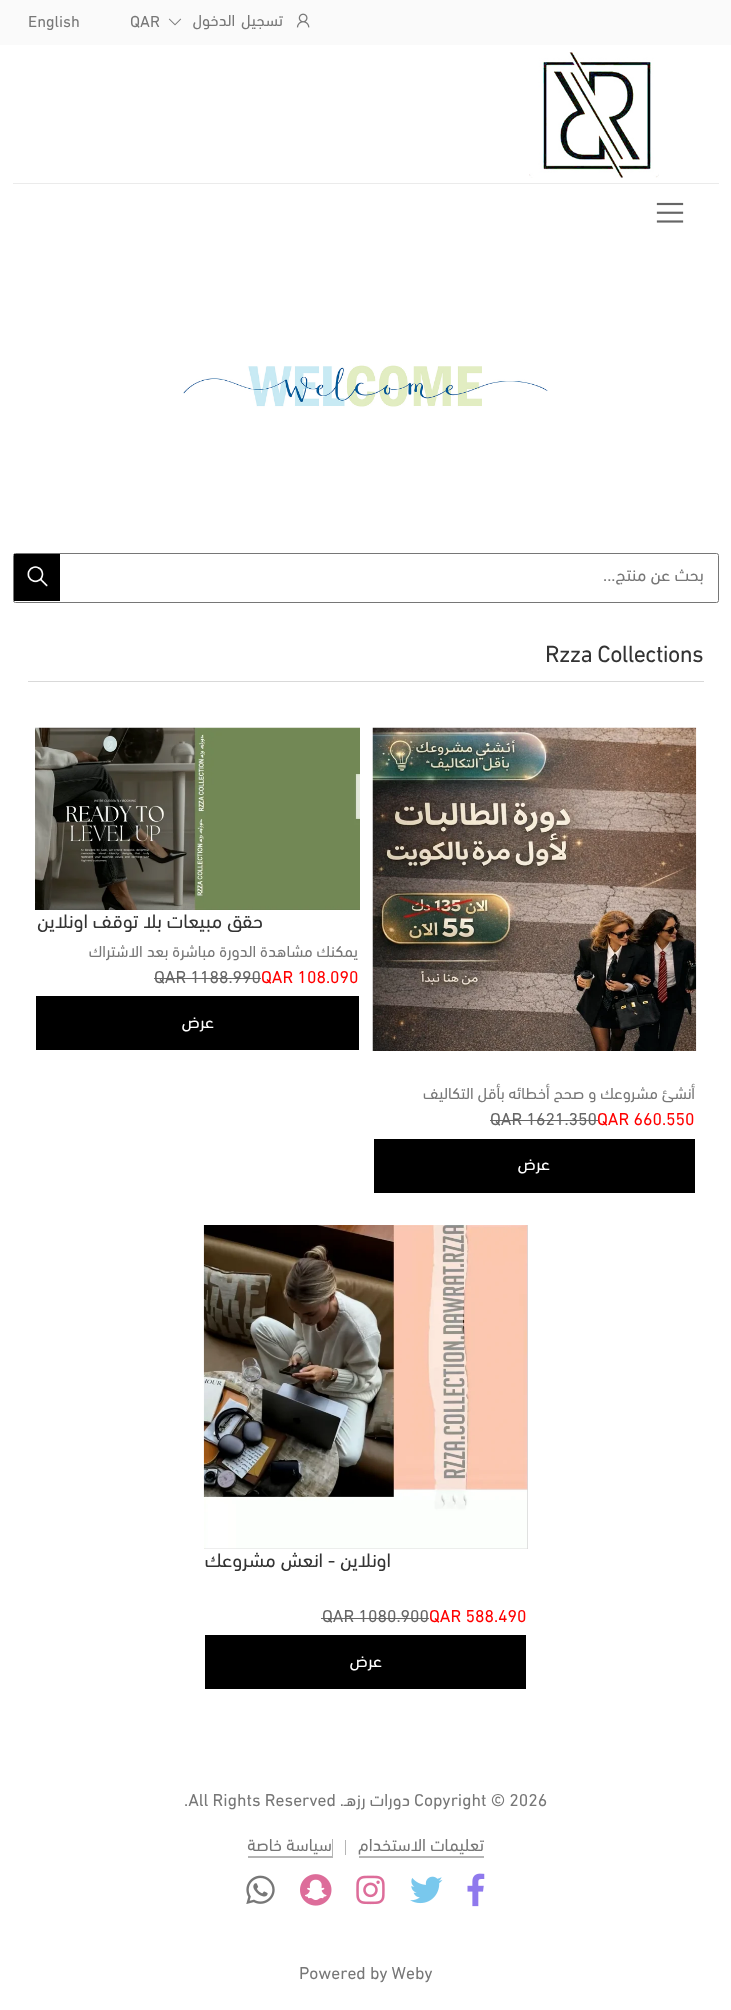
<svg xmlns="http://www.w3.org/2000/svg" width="731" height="2010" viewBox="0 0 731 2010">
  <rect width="100%" height="100%" fill="#ffffff"/>
  <rect x="0" y="0" width="731" height="45" fill="#fafafa"/>
  <image x="296" y="13" width="14" height="15" href="img1.png"/>
  <text x="283" y="26" word-spacing="2" font-family="'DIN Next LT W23'" font-size="16.25" letter-spacing="-0.2" direction="rtl" fill="#777777">تسجيل الدخول</text>
  <image x="168" y="18" width="14" height="8" href="img2.png"/>
  <text x="130" y="27" font-family="'DIN Next LT W23'" font-size="16.25" fill="#777777">QAR</text>
  <text x="28" y="27" font-family="'DIN Next LT W23'" font-size="16.25" fill="#777777">English</text>
  <image x="529" y="52" width="130" height="126" href="img3.png"/>
  <rect x="13" y="183" width="706" height="1" fill="#ebebeb"/>
  <image x="656" y="202" width="28" height="21" href="img4.png"/>
  <image x="0" y="243" width="731" height="286" href="img5.png"/>
  <rect x="13.5" y="553.5" width="705" height="49" rx="2" fill="none" stroke="#767676"/>
  <text x="704" y="581" font-family="'DIN Next LT W23'" font-size="17.5" direction="rtl" fill="#777777">بحث عن منتج...</text>
  <rect x="14" y="554" width="46" height="47" fill="#000000"/>
  <image x="27" y="566" width="21" height="21" href="img6.png"/>
  <rect x="28" y="681" width="676" height="1" fill="#d9d9d9"/>
  <text x="545" y="662" font-family="'DIN Next LT W23'" font-size="23.75" letter-spacing="-0.6" fill="#333333">Rzza Collections</text>
  <image x="35" y="727" width="325" height="183" href="img7.png"/>
  <text x="263" y="928" font-family="'DIN Next LT W23'" font-size="20" direction="rtl" fill="#333333">حقق مبيعات بلا توقف اونلاين</text>
  <text x="358" y="957" font-family="'DIN Next LT W23'" font-size="16.25" direction="rtl" fill="#777777">يمكنك مشاهدة الدورة مباشرة بعد الاشتراك</text>
  <text x="261" y="983" font-family="'DIN Next LT W23'" font-size="17.5" fill="#ff0000">QAR 108.090</text>
  <text x="154" y="983" font-family="'DIN Next LT W23'" font-size="17.5" fill="#666666">QAR 1188.990</text>
  <rect x="154" y="978" width="107" height="1" fill="#666666"/>
  <rect x="36" y="996" width="323" height="54" fill="#000000"/>
  <text x="214" y="1028" font-family="'DIN Next LT W23'" font-size="17.5" direction="rtl" fill="#ffffff">عرض</text>
  <image x="372" y="727" width="325" height="324" href="img8.png"/>
  <text x="695" y="1099" font-family="'DIN Next LT W23'" font-size="16.25" direction="rtl" fill="#777777">أنشئ مشروعك و صحح أخطائه بأقل التكاليف</text>
  <text x="597" y="1125" font-family="'DIN Next LT W23'" font-size="17.5" fill="#ff0000">QAR 660.550</text>
  <text x="490" y="1125" font-family="'DIN Next LT W23'" font-size="17.5" fill="#666666">QAR 1621.350</text>
  <rect x="490" y="1120" width="108" height="1" fill="#666666"/>
  <rect x="374" y="1139" width="321" height="54" fill="#000000"/>
  <text x="550" y="1170" font-family="'DIN Next LT W23'" font-size="17.5" direction="rtl" fill="#ffffff">عرض</text>
  <rect x="204" y="1225" width="324" height="324" fill="#d7d7d7"/>
  <image x="203" y="1225" width="325" height="324" href="img9.png"/>
  <text x="391" y="1567" font-family="'DIN Next LT W23'" font-size="20" direction="rtl" fill="#333333">اونلاين - انعش مشروعك</text>
  <text x="429" y="1622" font-family="'DIN Next LT W23'" font-size="17.5" fill="#ff0000">QAR 588.490</text>
  <text x="322" y="1622" font-family="'DIN Next LT W23'" font-size="17.5" fill="#666666">QAR 1080.900</text>
  <rect x="321" y="1618" width="108" height="1" fill="#666666"/>
  <rect x="205" y="1635" width="321" height="54" fill="#000000"/>
  <text x="382" y="1667" font-family="'DIN Next LT W23'" font-size="17.5" direction="rtl" fill="#ffffff">عرض</text>
  <text x="414" y="1806" font-family="'DIN Next LT W23'" font-size="17.5" fill="#777777">Copyright © 2026</text>
  <text x="410" y="1806" font-family="'DIN Next LT W23'" font-size="17.5" direction="rtl" fill="#777777">دورات رزهـ.</text>
  <text x="184" y="1806" font-family="'DIN Next LT W23'" font-size="17.5" fill="#777777">.All Rights Reserved</text>
  <text x="484" y="1851" font-family="'DIN Next LT W23'" font-size="17.5" direction="rtl" fill="#777777">تعليمات الاستخدام</text>
  <path d="M359 1856V1858H484V1839V1856Z" fill="#b5b5b5"/>
  <rect x="345" y="1840" width="1" height="15" fill="#b5b5b5"/>
  <path d="M248 1856V1858H333V1839H332V1856Z" fill="#b5b5b5"/>
  <text x="332" y="1851" font-family="'DIN Next LT W23'" font-size="17.5" direction="rtl" fill="#777777">سياسة خاصة</text>
  <image x="467" y="1873" width="18" height="34" href="img10.png"/>
  <image x="410" y="1876" width="33" height="28" href="img11.png"/>
  <image x="356" y="1875" width="29" height="30" href="img12.png"/>
  <image x="300" y="1874" width="32" height="32" href="img13.png"/>
  <image x="246" y="1875" width="29" height="29" href="img14.png"/>
  <text x="299" y="1979" font-family="'DIN Next LT W23'" font-size="17.5" fill="#777777">Powered by Weby</text>
</svg>
